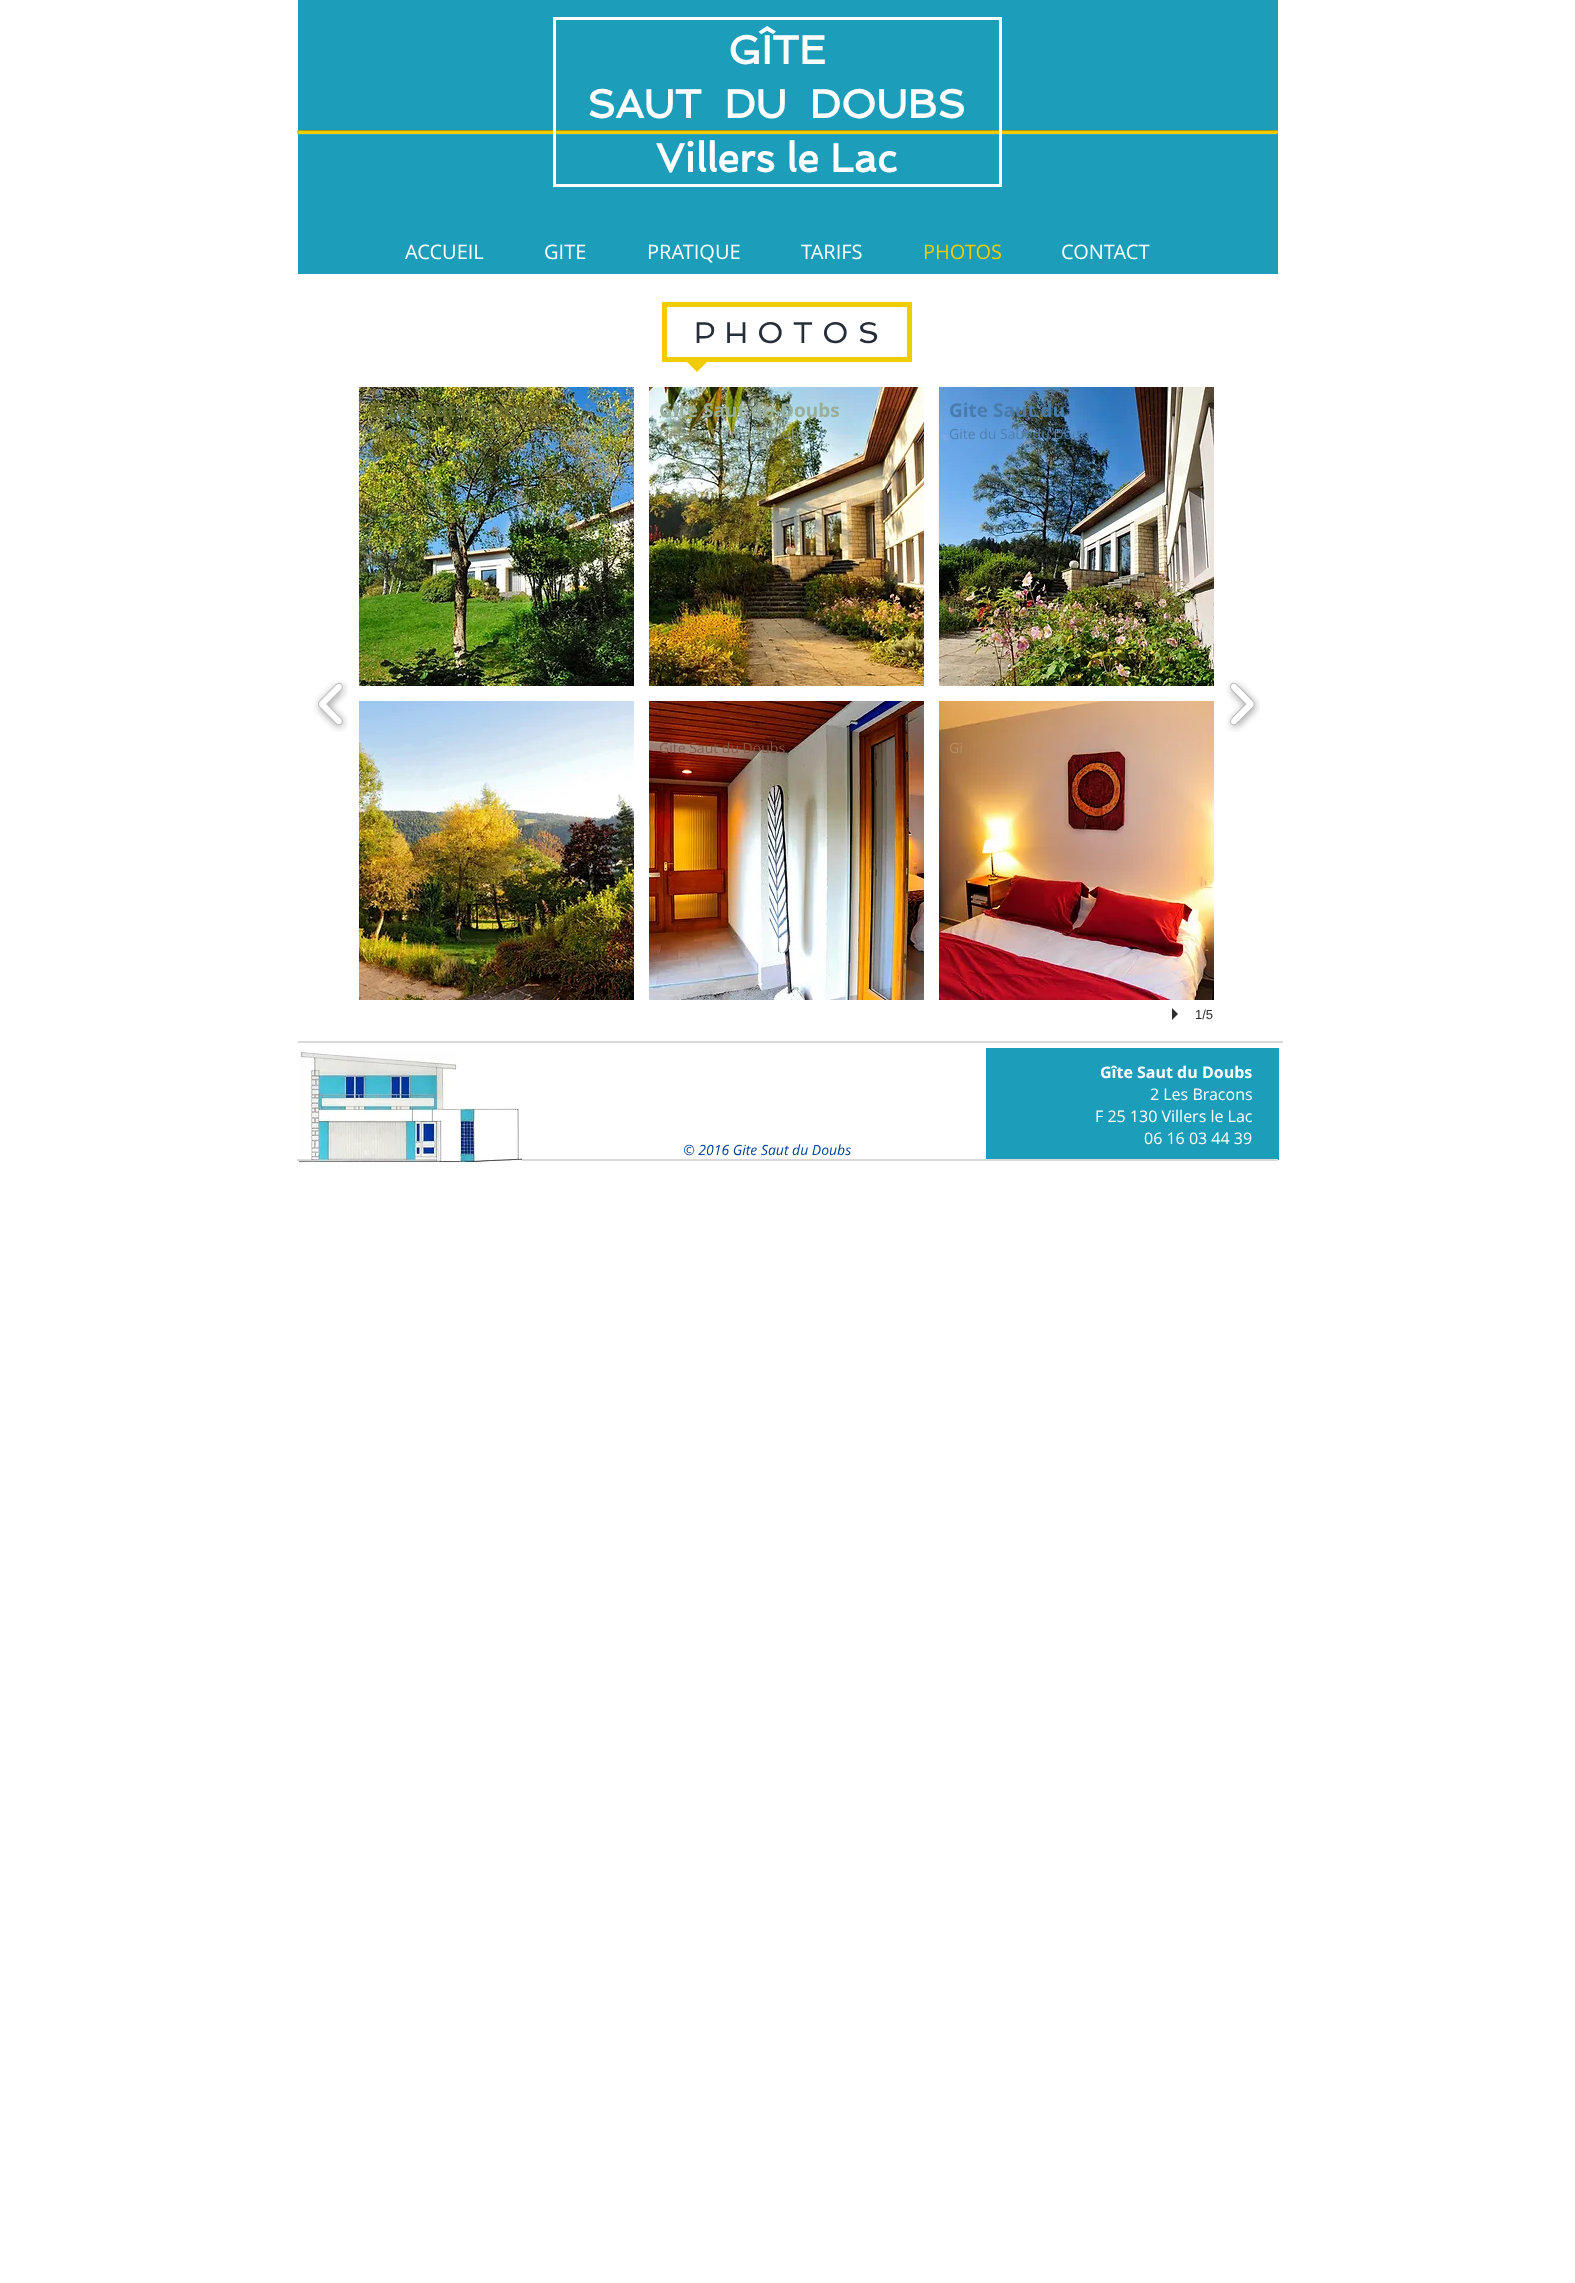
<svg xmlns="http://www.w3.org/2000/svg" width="1575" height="2283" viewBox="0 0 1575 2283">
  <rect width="100%" height="100%" fill="#ffffff"/>
  <rect x="298" y="0" width="980" height="274" fill="#1c9dba"/>
  <path d="M297 132C297 134 298 135 299 135H1276C1277 135 1278 134 1278 132C1278 133 1277 134 1276 134H299C298 134 297 133 297 132Z" fill="#33a7c1"/>
  <rect x="297" y="130" width="981" height="4" rx="2" fill="#f1cc01"/>
  <path d="M299 131H1277L1278 132L1277 131L1276 130H299C298 130 297 131 297 132Z" fill="#000000" fill-opacity="0.25"/>
  <rect x="554.5" y="18.5" width="446" height="167" fill="none" stroke="#ffffff" stroke-width="3"/>
  <text x="728" y="64" font-family="Spinnaker" font-size="40" font-weight="bold" fill="#ffffff">GÎTE</text>
  <text x="587" y="118" font-family="Spinnaker" font-size="40" font-weight="bold" fill="#ffffff" xml:space="preserve">SAUT  DU  DOUBS</text>
  <text x="656" y="172" font-family="Spinnaker" font-size="40" font-weight="bold" fill="#ffffff">Villers le Lac</text>
  <text x="405" y="259" font-family="Open Sans" font-size="20" fill="#ffffff">ACCUEIL</text>
  <text x="544" y="259" font-family="Open Sans" font-size="20" fill="#ffffff">GITE</text>
  <text x="647" y="259" font-family="Open Sans" font-size="20" fill="#ffffff">PRATIQUE</text>
  <text x="801" y="259" font-family="Open Sans" font-size="20" fill="#ffffff">TARIFS</text>
  <text x="923" y="259" font-family="Open Sans" font-size="20" fill="#f1cc01">PHOTOS</text>
  <text x="1061" y="259" font-family="Open Sans" font-size="20" fill="#ffffff">CONTACT</text>
  <rect x="664.5" y="304.5" width="245" height="55" fill="none" stroke="#f1cc01" stroke-width="5"/>
  <text x="694" y="343" font-family="Spinnaker" font-size="30" letter-spacing="9" fill="#272e38">PHOTOS</text>
  <path d="M687 362H707L697 372Z" fill="#f1cc01"/>
  <image x="359" y="387" width="275" height="299" href="img1.png"/>
  <text x="369" y="417" font-family="Open Sans" font-size="19" font-weight="bold" fill="#6c7133">Gite Saut du Doubs</text>
  <text x="369" y="439" font-family="Open Sans" font-size="14" fill="#727937">Gite du Saut du Doubs</text>
  <image x="649" y="387" width="275" height="299" href="img2.png"/>
  <text x="659" y="417" font-family="Open Sans" font-size="19" font-weight="bold" fill="#99ae99">Gite Saut du Doubs</text>
  <text x="659" y="439" font-family="Open Sans" font-size="14" fill="#86947b">Gite du Saut du Doubs</text>
  <image x="939" y="387" width="275" height="299" href="img3.png"/>
  <text x="949" y="417" font-family="Open Sans" font-size="19" font-weight="bold" fill="#477cad">Gite Saut du</text>
  <text x="949" y="439" font-family="Open Sans" font-size="14" fill="#4f80b0">Gite du Saut du Doub</text>
  <image x="359" y="701" width="275" height="299" href="img4.png"/>
  <image x="649" y="701" width="275" height="299" href="img5.png"/>
  <text x="659" y="753" font-family="Open Sans" font-size="14" fill="#875748">Gite Saut du Doubs</text>
  <image x="939" y="701" width="275" height="299" href="img6.png"/>
  <text x="949" y="753" font-family="Open Sans" font-size="14" fill="#bb8b62">Gi</text>
  <image x="314" y="680" width="34" height="52" href="img7.png"/>
  <image x="1226" y="680" width="34" height="52" href="img8.png"/>
  <path d="M1172 1020V1008L1178 1014Z" fill="#2f2e2e"/>
  <text x="1195" y="1019" font-family="Liberation Sans" font-size="13" fill="#2f2e2e">1/5</text>
  <rect x="298" y="1041" width="985" height="2" fill="#dbd8d8"/>
  <rect x="986" y="1048" width="293" height="112" fill="#1c9dba"/>
  <rect x="297" y="1159" width="981" height="2" fill="#dbd8d8"/>
  <image x="299" y="1050" width="223" height="114" href="img9.png"/>
  <text x="1100" y="1078" font-family="Open Sans" font-size="16" font-weight="bold" fill="#ffffff">Gîte Saut du Doubs</text>
  <text x="1150" y="1100" font-family="Open Sans" font-size="16" fill="#ffffff">2 Les Bracons</text>
  <text x="1095" y="1122" font-family="Open Sans" font-size="16" fill="#ffffff">F 25 130 Villers le Lac</text>
  <text x="1144" y="1144" font-family="Open Sans" font-size="16" fill="#ffffff">06 16 03 44 39</text>
  <text x="683" y="1155" font-family="Open Sans" font-size="14" font-style="italic" fill="#054196">© 2016 Gite Saut du Doubs</text>
</svg>
